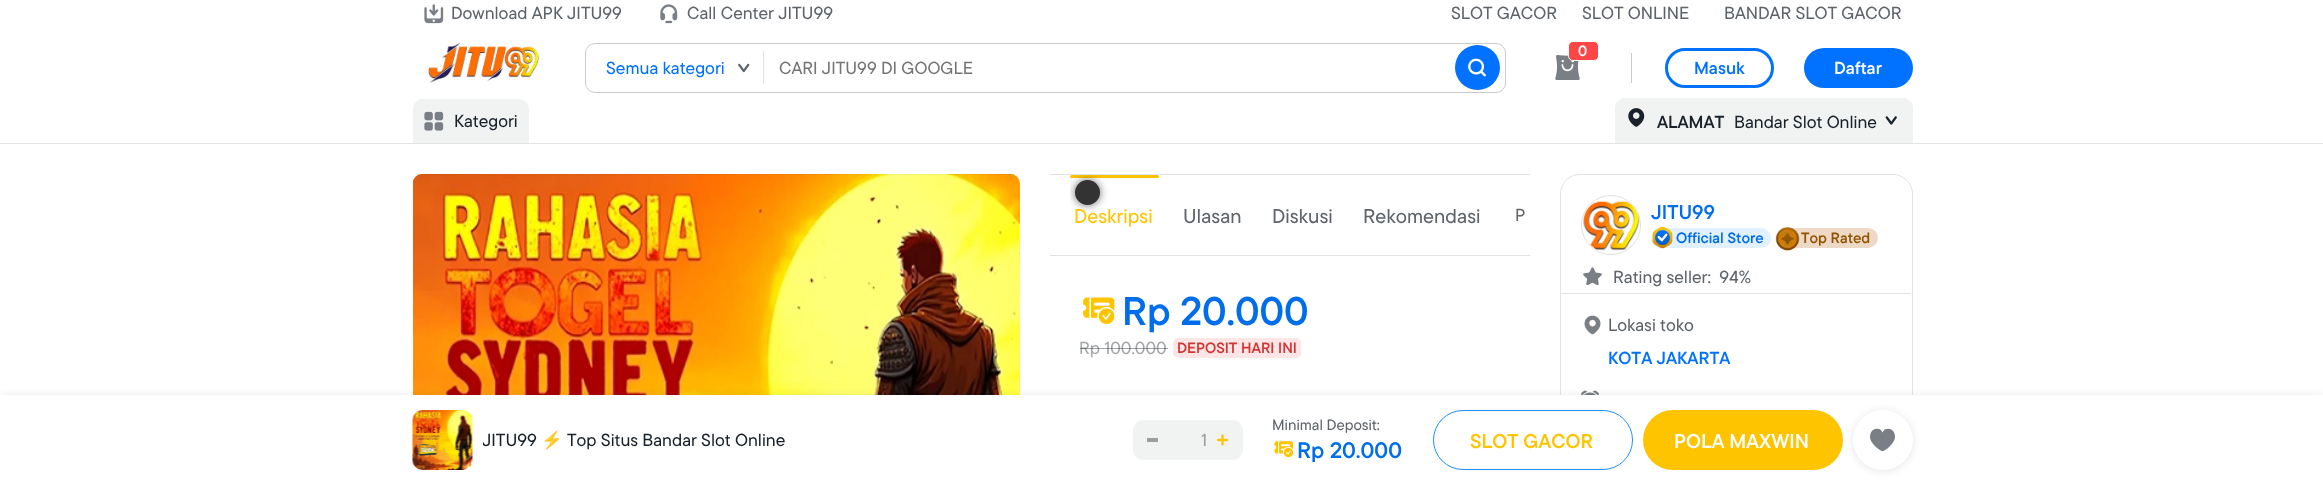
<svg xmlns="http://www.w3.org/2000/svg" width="2323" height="485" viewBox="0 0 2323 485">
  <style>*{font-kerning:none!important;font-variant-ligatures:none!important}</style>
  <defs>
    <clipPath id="clip1"><rect x="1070" y="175" width="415" height="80"/></clipPath>
    <filter id="blur1" x="-50%" y="-200%" width="200%" height="500%"><feGaussianBlur stdDeviation="4"/></filter>
    <clipPath id="clip2"><rect x="483" y="429" width="350" height="22"/></clipPath>
  </defs>
  <rect width="100%" height="100%" fill="#ffffff"/>
  <rect x="0" y="143" width="2323" height="1" fill="#e1e3e4"/>
  <image x="424" y="4" width="20" height="20" href="img1.png"/>
  <text x="451" y="19" font-family="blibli" font-size="17.5" font-weight="500" fill="#5e646a">Download APK JITU99</text>
  <image x="660" y="4" width="18" height="20" href="img2.png"/>
  <text x="687" y="19" font-family="blibli" font-size="17.5" font-weight="500" fill="#5e646a">Call Center JITU99</text>
  <text x="1451" y="19" font-family="blibli" font-size="17.5" font-weight="500" fill="#5e646a">SLOT GACOR</text>
  <text x="1582" y="19" font-family="blibli" font-size="17.5" font-weight="500" fill="#5e646a">SLOT ONLINE</text>
  <text x="1724" y="19" font-family="blibli" font-size="17.5" font-weight="500" fill="#5e646a">BANDAR SLOT GACOR</text>
  <rect x="585.5" y="43.5" width="920" height="49" rx="9.5" fill="none" stroke="#c8cbcd"/>
  <rect x="763" y="51" width="1" height="33" fill="#e1e3e4"/>
  <text x="606" y="74" font-family="blibli" font-size="17.5" font-weight="500" fill="#0072ff">Semua kategori</text>
  <image x="738" y="63" width="12" height="10" href="img3.png"/>
  <text x="779" y="74" font-family="blibli" font-size="17.5" font-weight="500" fill="#757575">CARI JITU99 DI GOOGLE</text>
  <circle cx="1477.5" cy="67.5" r="22.5" fill="#0072ff"/>
  <image x="1468" y="58" width="18" height="19" href="img4.png"/>
  <image x="1555" y="55" width="25" height="25" href="img5.png"/>
  <rect x="1568.5" y="41.5" width="30" height="19" rx="4.5" fill="#ff4646" stroke="#ffffff"/>
  <text x="1578" y="56" font-family="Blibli" font-size="15" font-weight="600" fill="#ffffff">0</text>
  <rect x="1631" y="53" width="1" height="30" fill="#c8cbcd"/>
  <rect x="1666.5" y="49.5" width="106" height="37" rx="18.5" fill="none" stroke="#0072ff" stroke-width="3"/>
  <text x="1694" y="74" font-family="Blibli" font-size="17.5" font-weight="600" fill="#0072ff">Masuk</text>
  <rect x="1804" y="48" width="109" height="40" rx="20" fill="#0072ff"/>
  <text x="1834" y="74" font-family="Blibli" font-size="17.5" font-weight="600" fill="#ffffff">Daftar</text>
  <path d="M1625 98H1903C1908.5 98 1913 102.5 1913 108V143H1615V108C1615 102.5 1619.5 98 1625 98Z" fill="#f1f2f2"/>
  <image x="1628" y="108" width="17" height="19" href="img6.png"/>
  <text x="1657" y="128" font-family="Blibli" font-size="17.5" font-weight="600" fill="#19222a">ALAMAT</text>
  <text x="1734" y="128" font-family="blibli" font-size="17.5" font-weight="500" fill="#19222a">Bandar Slot Online</text>
  <image x="1885" y="116" width="12" height="9" href="img7.png"/>
  <image x="428" y="42" width="111" height="41" href="img8.png"/>
  <path d="M423 99H519C524.5 99 529 103.5 529 109V143H413V109C413 103.5 417.5 99 423 99Z" fill="#f1f2f2"/>
  <image x="424" y="111" width="20" height="20" href="img9.png"/>
  <text x="454" y="127" font-family="blibli" font-size="17.5" font-weight="500" fill="#19222a">Kategori</text>
  <image x="413" y="174" width="607" height="221" href="img10.png"/>
  <rect x="1050" y="174" width="480" height="1" fill="#e1e3e4"/>
  <rect x="1050" y="255" width="480" height="1" fill="#e1e3e4"/>
  <rect x="1070" y="175" width="89" height="3" rx="1.5" fill="#ffc400"/>
  <g clip-path="url(#clip1)">
    <rect x="1075" y="180" width="25" height="25" rx="12.5" fill="#000000" fill-opacity="0.6" filter="url(#blur1)"/>
  </g>
  <circle cx="1087.5" cy="192.5" r="12.5" fill="#333333"/>
  <text x="1074" y="223" font-family="blibli" font-size="20" font-weight="500" fill="#ffc400">Deskripsi</text>
  <text x="1183" y="223" font-family="blibli" font-size="20" font-weight="500" fill="#5e646a">Ulasan</text>
  <text x="1272" y="223" font-family="blibli" font-size="20" font-weight="500" fill="#5e646a">Diskusi</text>
  <text x="1363" y="223" font-family="blibli" font-size="20" font-weight="500" fill="#5e646a">Rekomendasi</text>
  <text x="1515" y="221" font-family="blibli" font-size="17.5" font-weight="500" fill="#666666">P</text>
  <image x="1083" y="297" width="32" height="28" href="img11.png"/>
  <text x="1122" y="325" font-family="Blibli" font-size="40" font-weight="600" fill="#006dea">Rp 20.000</text>
  <text x="1079" y="354" font-family="blibli" font-size="17.5" font-weight="500" fill="#a3a7aa">Rp 100.000</text>
  <rect x="1080" y="348" width="88" height="1" fill="#19222a" fill-opacity="0.4"/>
  <rect x="1173" y="338" width="128" height="20" rx="5" fill="#ffe6e6"/>
  <text x="1177" y="353" font-family="Blibli" font-size="15" font-weight="600" fill="#d33534">DEPOSIT HARI INI</text>
  <rect x="1560.5" y="174.5" width="352" height="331" rx="19.5" fill="none" stroke="#e1e3e4"/>
  <circle cx="1611" cy="225" r="29.5" fill="none" stroke="#e0e0e0"/>
  <image x="1583" y="201" width="57" height="50" href="img12.png"/>
  <text x="1651" y="219" font-family="Blibli" font-size="20" font-weight="600" fill="#006dea">JITU99</text>
  <rect x="1651" y="228" width="120" height="20" rx="10" fill="#e1f1ff"/>
  <image x="1652" y="226" width="21" height="23" href="img13.png"/>
  <text x="1676" y="243" font-family="Blibli" font-size="15" font-weight="600" fill="#006dea">Official Store</text>
  <rect x="1776" y="228" width="102" height="20" rx="10" fill="#edd9c6"/>
  <image x="1775" y="227" width="25" height="24" href="img14.png"/>
  <text x="1801" y="243" font-family="Blibli" font-size="15" font-weight="600" fill="#925304">Top Rated</text>
  <image x="1583" y="267" width="19" height="19" href="img15.png"/>
  <text x="1613" y="283" font-family="blibli" font-size="17.5" font-weight="500" fill="#5e646a" xml:space="preserve">Rating seller:  94%</text>
  <rect x="1561" y="293" width="350" height="1" fill="#e1e3e4"/>
  <image x="1584" y="315" width="17" height="20" href="img16.png"/>
  <text x="1608" y="331" font-family="blibli" font-size="17.5" font-weight="500" fill="#5e646a">Lokasi toko</text>
  <text x="1608" y="364" font-family="Blibli" font-size="17.5" font-weight="600" fill="#0072ff">KOTA JAKARTA</text>
  <image x="1581" y="390" width="18" height="5" href="img17.png"/>
  <rect x="0" y="396" width="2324" height="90" fill="#000000" fill-opacity="0.1" filter="url(#blur1)"/>
  <rect x="0" y="395" width="2323" height="90" fill="#ffffff"/>
  <image x="412" y="410" width="61" height="60" href="img18.png"/>
  <g clip-path="url(#clip2)">
    <text x="482" y="446" font-family="blibli" font-size="17.5" font-weight="500" fill="#19222a">JITU99</text>
  </g>
  <text x="541" y="446" font-family="Noto Color Emoji" font-size="17.5" fill="#19222a">⚡</text>
  <text x="567" y="446" font-family="blibli" font-size="17.5" font-weight="500" fill="#19222a">Top Situs Bandar Slot Online</text>
  <rect x="1133" y="420" width="110" height="40" rx="10" fill="#f1f2f2"/>
  <rect x="1147" y="438" width="11" height="4" fill="#9b9fa2"/>
  <text x="1201" y="446" font-family="blibli" font-size="17.5" font-weight="500" fill="#9b9fa2">1</text>
  <image x="1216" y="434" width="13" height="12" href="img19.png"/>
  <text x="1272" y="430" font-family="blibli" font-size="15" font-weight="500" fill="#5e646a">Minimal Deposit:</text>
  <image x="1274" y="441" width="20" height="17" href="img20.png"/>
  <text x="1297" y="458" font-family="Blibli" font-size="22.5" font-weight="600" fill="#006dea">Rp 20.000</text>
  <rect x="1433.5" y="410.5" width="199" height="59" rx="29.5" fill="none" stroke="#1d8fff"/>
  <text x="1470" y="448" font-family="Blibli" font-size="20" font-weight="600" fill="#ffc400">SLOT GACOR</text>
  <rect x="1853" y="411" width="60" height="60" rx="30" fill="#000000" fill-opacity="0.1" filter="url(#blur1)"/>
  <rect x="1643" y="410" width="200" height="60" rx="30" fill="#ffc400"/>
  <text x="1674" y="448" font-family="Blibli" font-size="20" font-weight="600" fill="#ffffff">POLA MAXWIN</text>
  <circle cx="1883" cy="440" r="30" fill="#ffffff"/>
  <image x="1870" y="428" width="25" height="24" href="img21.png"/>
</svg>
